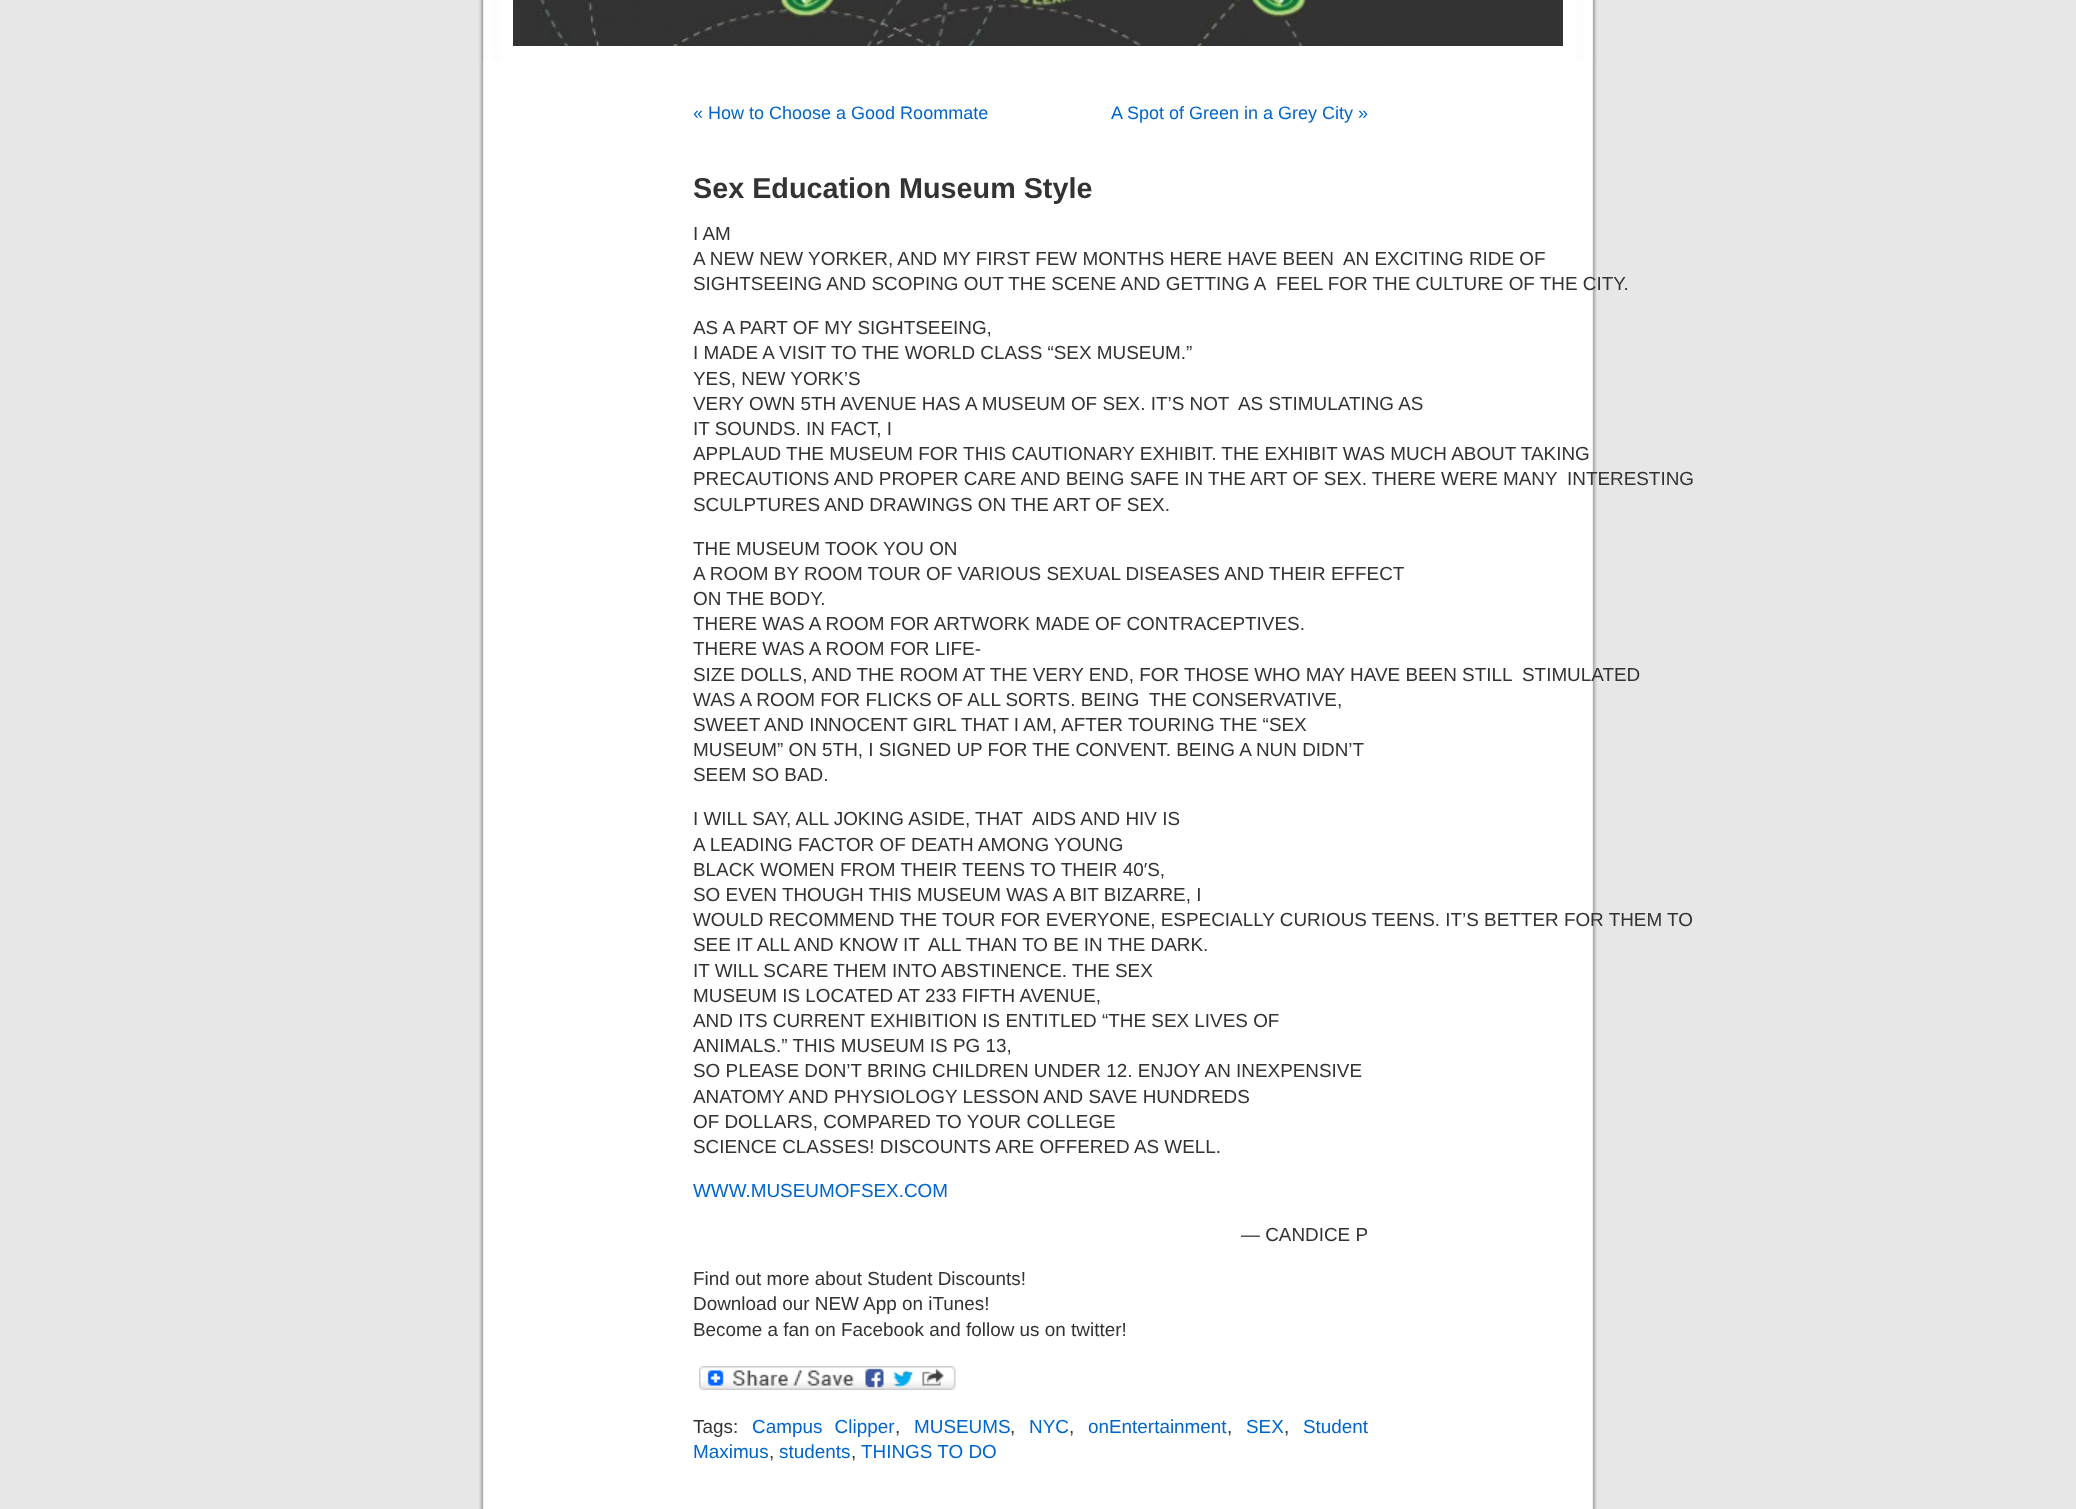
<svg xmlns="http://www.w3.org/2000/svg" width="2076" height="1509" viewBox="0 0 2076 1509">
  <rect width="100%" height="100%" fill="#e7e7e7"/>
  <image x="479" y="61" width="1118" height="1448" href="img1.png"/>
  <image x="478" y="0" width="1120" height="61" href="img2.png"/>
  <image x="513" y="0" width="1050" height="46" href="img3.png"/>
  <text x="693" y="119" font-family="Liberation Sans" font-size="18" fill="#0066cc">« How to Choose a Good Roommate</text>
  <text x="1111" y="119" font-family="Liberation Sans" font-size="18" fill="#0066cc">A Spot of Green in a Grey City »</text>
  <text x="693" y="198" font-family="Liberation Sans" font-size="28.75" font-weight="bold" fill="#333333">Sex Education Museum Style</text>
  <text x="693" y="240" font-family="Liberation Sans" font-size="18.9" fill="#333333">I AM</text>
  <text x="693" y="265" font-family="Liberation Sans" font-size="18.9" fill="#333333">A NEW NEW YORKER, AND MY FIRST FEW MONTHS HERE HAVE BEEN</text>
  <text x="1343" y="265" font-family="Liberation Sans" font-size="18.9" fill="#333333">AN EXCITING RIDE OF</text>
  <text x="693" y="290" font-family="Liberation Sans" font-size="18.9" fill="#333333">SIGHTSEEING AND SCOPING OUT THE SCENE AND GETTING A</text>
  <text x="1276" y="290" font-family="Liberation Sans" font-size="18.9" fill="#333333">FEEL FOR THE CULTURE OF THE CITY.</text>
  <text x="693" y="334" font-family="Liberation Sans" font-size="18.9" fill="#333333">AS A PART OF MY SIGHTSEEING,</text>
  <text x="693" y="359" font-family="Liberation Sans" font-size="18.9" fill="#333333">I MADE A VISIT TO THE WORLD CLASS “SEX MUSEUM.”</text>
  <text x="693" y="385" font-family="Liberation Sans" font-size="18.9" fill="#333333">YES, NEW YORK’S</text>
  <text x="693" y="410" font-family="Liberation Sans" font-size="18.9" fill="#333333">VERY OWN 5TH AVENUE HAS A MUSEUM OF SEX. IT’S NOT</text>
  <text x="1238" y="410" font-family="Liberation Sans" font-size="18.9" fill="#333333">AS STIMULATING AS</text>
  <text x="693" y="435" font-family="Liberation Sans" font-size="18.9" fill="#333333">IT SOUNDS. IN FACT, I</text>
  <text x="693" y="460" font-family="Liberation Sans" font-size="18.9" fill="#333333">APPLAUD THE MUSEUM FOR THIS CAUTIONARY EXHIBIT. THE EXHIBIT WAS MUCH ABOUT TAKING</text>
  <text x="693" y="485" font-family="Liberation Sans" font-size="18.9" fill="#333333">PRECAUTIONS AND PROPER CARE AND BEING SAFE IN THE ART OF SEX. THERE WERE MANY</text>
  <text x="1567" y="485" font-family="Liberation Sans" font-size="18.9" fill="#333333">INTERESTING</text>
  <text x="693" y="511" font-family="Liberation Sans" font-size="18.9" fill="#333333">SCULPTURES AND DRAWINGS ON THE ART OF SEX.</text>
  <text x="693" y="555" font-family="Liberation Sans" font-size="18.9" fill="#333333">THE MUSEUM TOOK YOU ON</text>
  <text x="693" y="580" font-family="Liberation Sans" font-size="18.9" fill="#333333">A ROOM BY ROOM TOUR OF VARIOUS SEXUAL DISEASES AND THEIR EFFECT</text>
  <text x="693" y="605" font-family="Liberation Sans" font-size="18.9" fill="#333333">ON THE BODY.</text>
  <text x="693" y="630" font-family="Liberation Sans" font-size="18.9" fill="#333333">THERE WAS A ROOM FOR ARTWORK MADE OF CONTRACEPTIVES.</text>
  <text x="693" y="655" font-family="Liberation Sans" font-size="18.9" fill="#333333">THERE WAS A ROOM FOR LIFE-</text>
  <text x="693" y="681" font-family="Liberation Sans" font-size="18.9" fill="#333333">SIZE DOLLS, AND THE ROOM AT THE VERY END, FOR THOSE WHO MAY HAVE BEEN STILL</text>
  <text x="1522" y="681" font-family="Liberation Sans" font-size="18.9" fill="#333333">STIMULATED</text>
  <text x="693" y="706" font-family="Liberation Sans" font-size="18.9" fill="#333333">WAS A ROOM FOR FLICKS OF ALL SORTS. BEING</text>
  <text x="1149" y="706" font-family="Liberation Sans" font-size="18.9" fill="#333333">THE CONSERVATIVE,</text>
  <text x="693" y="731" font-family="Liberation Sans" font-size="18.9" fill="#333333">SWEET AND INNOCENT GIRL THAT I AM, AFTER TOURING THE “SEX</text>
  <text x="693" y="756" font-family="Liberation Sans" font-size="18.9" fill="#333333">MUSEUM” ON 5TH, I SIGNED UP FOR THE CONVENT. BEING A NUN DIDN’T</text>
  <text x="693" y="781" font-family="Liberation Sans" font-size="18.9" fill="#333333">SEEM SO BAD.</text>
  <text x="693" y="825" font-family="Liberation Sans" font-size="18.9" fill="#333333">I WILL SAY, ALL JOKING ASIDE, THAT</text>
  <text x="1032" y="825" font-family="Liberation Sans" font-size="18.9" fill="#333333">AIDS AND HIV IS</text>
  <text x="693" y="851" font-family="Liberation Sans" font-size="18.9" fill="#333333">A LEADING FACTOR OF DEATH AMONG YOUNG</text>
  <text x="693" y="876" font-family="Liberation Sans" font-size="18.9" fill="#333333">BLACK WOMEN FROM THEIR TEENS TO THEIR 40′S,</text>
  <text x="693" y="901" font-family="Liberation Sans" font-size="18.9" fill="#333333">SO EVEN THOUGH THIS MUSEUM WAS A BIT BIZARRE, I</text>
  <text x="693" y="926" font-family="Liberation Sans" font-size="18.9" fill="#333333">WOULD RECOMMEND THE TOUR FOR EVERYONE, ESPECIALLY CURIOUS TEENS. IT’S BETTER FOR THEM TO</text>
  <text x="693" y="951" font-family="Liberation Sans" font-size="18.9" fill="#333333">SEE IT ALL AND KNOW IT</text>
  <text x="928" y="951" font-family="Liberation Sans" font-size="18.9" fill="#333333">ALL THAN TO BE IN THE DARK.</text>
  <text x="693" y="977" font-family="Liberation Sans" font-size="18.9" fill="#333333">IT WILL SCARE THEM INTO ABSTINENCE. THE SEX</text>
  <text x="693" y="1002" font-family="Liberation Sans" font-size="18.9" fill="#333333">MUSEUM IS LOCATED AT 233 FIFTH AVENUE,</text>
  <text x="693" y="1027" font-family="Liberation Sans" font-size="18.9" fill="#333333">AND ITS CURRENT EXHIBITION IS ENTITLED “THE SEX LIVES OF</text>
  <text x="693" y="1052" font-family="Liberation Sans" font-size="18.9" fill="#333333">ANIMALS.” THIS MUSEUM IS PG 13,</text>
  <text x="693" y="1077" font-family="Liberation Sans" font-size="18.9" fill="#333333">SO PLEASE DON’T BRING CHILDREN UNDER 12. ENJOY AN INEXPENSIVE</text>
  <text x="693" y="1103" font-family="Liberation Sans" font-size="18.9" fill="#333333">ANATOMY AND PHYSIOLOGY LESSON AND SAVE HUNDREDS</text>
  <text x="693" y="1128" font-family="Liberation Sans" font-size="18.9" fill="#333333">OF DOLLARS, COMPARED TO YOUR COLLEGE</text>
  <text x="693" y="1153" font-family="Liberation Sans" font-size="18.9" fill="#333333">SCIENCE CLASSES! DISCOUNTS ARE OFFERED AS WELL.</text>
  <text x="693" y="1197" font-family="Liberation Sans" font-size="18.9" fill="#0066cc">WWW.MUSEUMOFSEX.COM</text>
  <text x="1241" y="1241" font-family="Liberation Sans" font-size="18.9" fill="#333333">— CANDICE P</text>
  <text x="693" y="1285" font-family="Liberation Sans" font-size="18.9" fill="#333333">Find out more about Student Discounts!</text>
  <text x="693" y="1310" font-family="Liberation Sans" font-size="18.9" fill="#333333">Download our NEW App on iTunes!</text>
  <text x="693" y="1336" font-family="Liberation Sans" font-size="18.9" fill="#333333">Become a fan on Facebook and follow us on twitter!</text>
  <image x="699" y="1366" width="257" height="24" href="img4.png"/>
  <text x="693" y="1433" font-family="Liberation Sans" font-size="18.9" fill="#333333">Tags:</text>
  <text x="752" y="1433" word-spacing="7" font-family="Liberation Sans" font-size="18.9" fill="#0066cc">Campus Clipper</text>
  <text x="895" y="1433" font-family="Liberation Sans" font-size="18.9" fill="#333333">,</text>
  <text x="914" y="1433" font-family="Liberation Sans" font-size="18.9" fill="#0066cc">MUSEUMS</text>
  <text x="1010" y="1433" font-family="Liberation Sans" font-size="18.9" fill="#333333">,</text>
  <text x="1029" y="1433" font-family="Liberation Sans" font-size="18.9" fill="#0066cc">NYC</text>
  <text x="1069" y="1433" font-family="Liberation Sans" font-size="18.9" fill="#333333">,</text>
  <text x="1088" y="1433" font-family="Liberation Sans" font-size="18.9" fill="#0066cc">onEntertainment</text>
  <text x="1227" y="1433" font-family="Liberation Sans" font-size="18.9" fill="#333333">,</text>
  <text x="1246" y="1433" font-family="Liberation Sans" font-size="18.9" fill="#0066cc">SEX</text>
  <text x="1284" y="1433" font-family="Liberation Sans" font-size="18.9" fill="#333333">,</text>
  <text x="1303" y="1433" font-family="Liberation Sans" font-size="18.9" fill="#0066cc">Student</text>
  <text x="693" y="1458" font-family="Liberation Sans" font-size="18.9" fill="#0066cc">Maximus</text>
  <text x="769" y="1458" font-family="Liberation Sans" font-size="18.9" fill="#333333">,</text>
  <text x="779" y="1458" font-family="Liberation Sans" font-size="18.9" fill="#0066cc">students</text>
  <text x="851" y="1458" font-family="Liberation Sans" font-size="18.9" fill="#333333">,</text>
  <text x="861" y="1458" font-family="Liberation Sans" font-size="18.9" fill="#0066cc">THINGS TO DO</text>
</svg>
